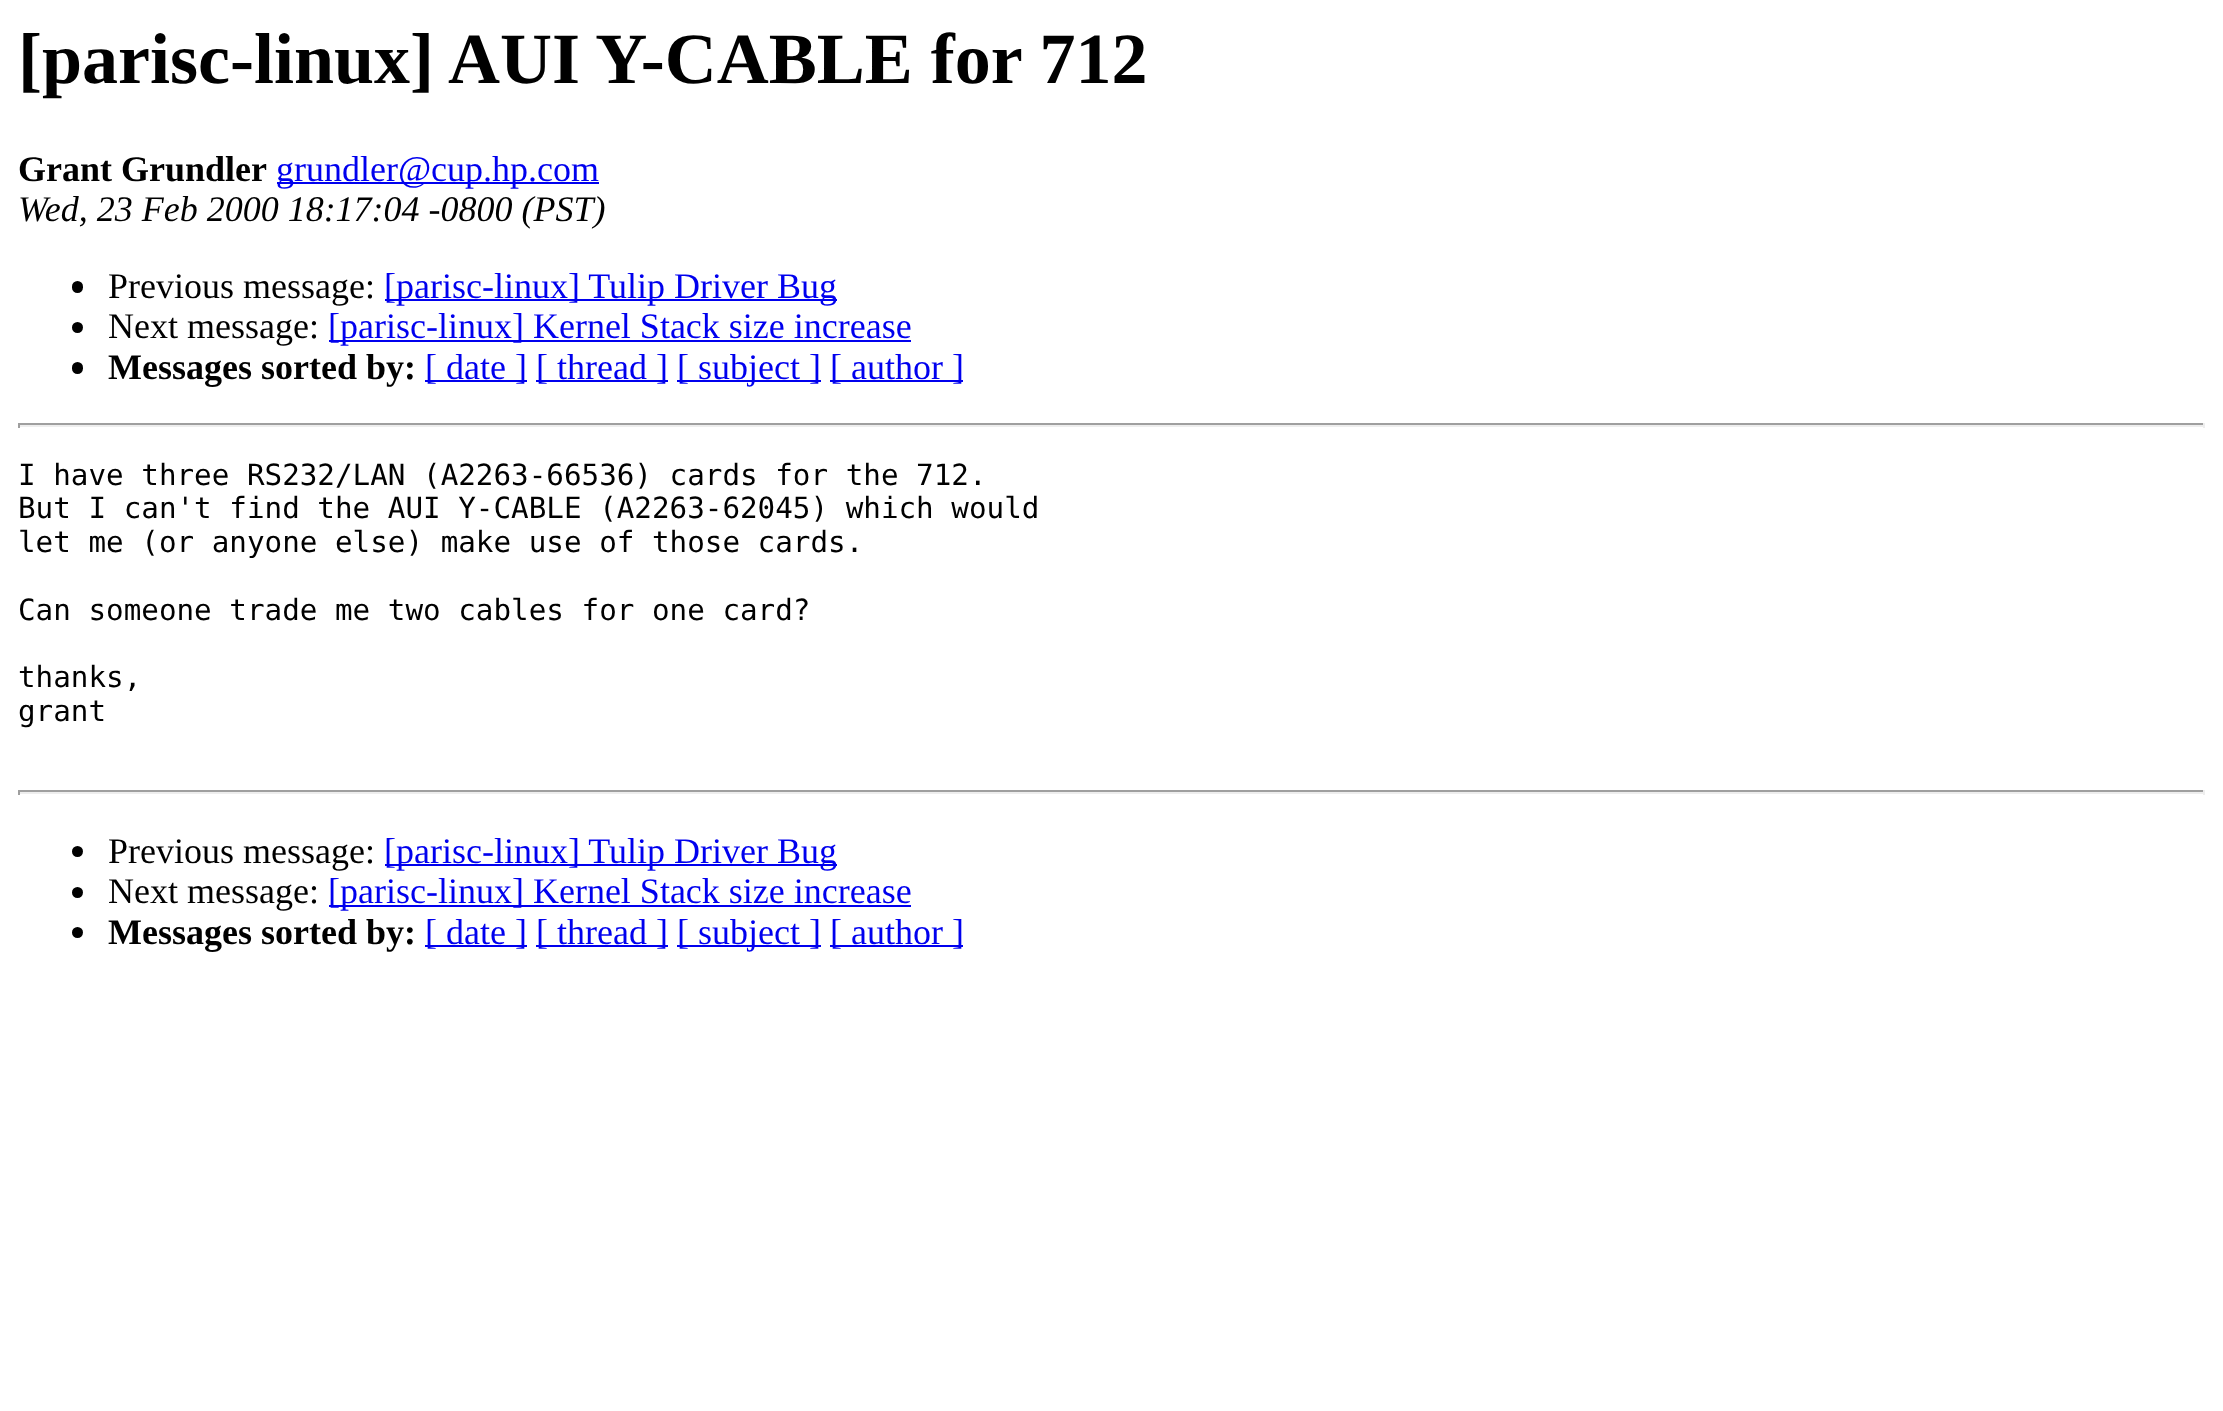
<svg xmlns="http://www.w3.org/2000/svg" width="2223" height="1411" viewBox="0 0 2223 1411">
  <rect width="100%" height="100%" fill="#ffffff"/>
  <text x="18" y="83" font-family="Liberation Serif" font-size="72" font-weight="bold" fill="#000000">[parisc-linux] AUI Y-CABLE for 712</text>
  <text x="18" y="181" font-family="Liberation Serif" font-size="36" font-weight="bold" fill="#000000">Grant Grundler</text>
  <rect x="277" y="182" width="322" height="2" fill="#0000ee"/>
  <text x="276" y="181" font-family="Liberation Serif" font-size="36" fill="#0000ee">grundler@cup.hp.com</text>
  <text x="18" y="221" font-family="Liberation Serif" font-size="36" font-style="italic" fill="#000000">Wed, 23 Feb 2000 18:17:04 -0800 (PST)</text>
  <rect x="72" y="281" width="11" height="12" rx="5.5" fill="#000000"/>
  <text x="108" y="298" font-family="Liberation Serif" font-size="36" fill="#000000">Previous message:</text>
  <rect x="385" y="299" width="452" height="2" fill="#0000ee"/>
  <text x="384" y="298" font-family="Liberation Serif" font-size="36" fill="#0000ee">[parisc-linux] Tulip Driver Bug</text>
  <circle cx="77.5" cy="327.5" r="5.5" fill="#000000"/>
  <text x="108" y="338" font-family="Liberation Serif" font-size="36" fill="#000000">Next message:</text>
  <rect x="329" y="340" width="582" height="2" fill="#0000ee"/>
  <text x="328" y="338" font-family="Liberation Serif" font-size="36" fill="#0000ee">[parisc-linux] Kernel Stack size increase</text>
  <rect x="72" y="362" width="11" height="12" rx="5.5" fill="#000000"/>
  <text x="108" y="379" font-family="Liberation Serif" font-size="36" font-weight="bold" fill="#000000">Messages sorted by:</text>
  <rect x="425" y="380" width="102" height="2" fill="#0000ee"/>
  <text x="425" y="379" font-family="Liberation Serif" font-size="36" fill="#0000ee">[ date ]</text>
  <rect x="536" y="380" width="132" height="2" fill="#0000ee"/>
  <text x="536" y="379" font-family="Liberation Serif" font-size="36" fill="#0000ee">[ thread ]</text>
  <rect x="677" y="380" width="144" height="2" fill="#0000ee"/>
  <text x="677" y="379" font-family="Liberation Serif" font-size="36" fill="#0000ee">[ subject ]</text>
  <rect x="830" y="380" width="133" height="2" fill="#0000ee"/>
  <text x="830" y="379" font-family="Liberation Serif" font-size="36" fill="#0000ee">[ author ]</text>
  <rect x="18" y="423" width="2187" height="2" fill="#9f9f9f"/>
  <rect x="2203" y="423" width="2" height="5" fill="#eeeeee"/>
  <rect x="18" y="425" width="2187" height="2" fill="#eeeeee"/>
  <rect x="18" y="423" width="2" height="5" fill="#9f9f9f"/>
  <text x="18" y="485" font-family="DejaVu Sans Mono" font-size="29.25" fill="#000000">I have three RS232/LAN (A2263-66536) cards for the 712.</text>
  <text x="18" y="518" font-family="DejaVu Sans Mono" font-size="29.25" fill="#000000">But I can't find the AUI Y-CABLE (A2263-62045) which would</text>
  <text x="18" y="552" font-family="DejaVu Sans Mono" font-size="29.25" fill="#000000">let me (or anyone else) make use of those cards.</text>
  <text x="18" y="620" font-family="DejaVu Sans Mono" font-size="29.25" fill="#000000">Can someone trade me two cables for one card?</text>
  <text x="18" y="687" font-family="DejaVu Sans Mono" font-size="29.25" fill="#000000">thanks,</text>
  <text x="18" y="721" font-family="DejaVu Sans Mono" font-size="29.25" fill="#000000">grant</text>
  <rect x="18" y="790" width="2187" height="2" fill="#9f9f9f"/>
  <rect x="2203" y="790" width="2" height="5" fill="#eeeeee"/>
  <rect x="18" y="792" width="2187" height="2" fill="#eeeeee"/>
  <rect x="18" y="790" width="2" height="5" fill="#9f9f9f"/>
  <circle cx="77.5" cy="851.5" r="5.5" fill="#000000"/>
  <text x="108" y="863" font-family="Liberation Serif" font-size="36" fill="#000000">Previous message:</text>
  <rect x="385" y="864" width="452" height="2" fill="#0000ee"/>
  <text x="384" y="863" font-family="Liberation Serif" font-size="36" fill="#0000ee">[parisc-linux] Tulip Driver Bug</text>
  <circle cx="77.5" cy="892.5" r="5.5" fill="#000000"/>
  <text x="108" y="903" font-family="Liberation Serif" font-size="36" fill="#000000">Next message:</text>
  <rect x="329" y="905" width="582" height="2" fill="#0000ee"/>
  <text x="328" y="903" font-family="Liberation Serif" font-size="36" fill="#0000ee">[parisc-linux] Kernel Stack size increase</text>
  <circle cx="77.5" cy="932.5" r="5.5" fill="#000000"/>
  <text x="108" y="944" font-family="Liberation Serif" font-size="36" font-weight="bold" fill="#000000">Messages sorted by:</text>
  <rect x="425" y="945" width="102" height="2" fill="#0000ee"/>
  <text x="425" y="944" font-family="Liberation Serif" font-size="36" fill="#0000ee">[ date ]</text>
  <rect x="536" y="945" width="132" height="2" fill="#0000ee"/>
  <text x="536" y="944" font-family="Liberation Serif" font-size="36" fill="#0000ee">[ thread ]</text>
  <rect x="677" y="945" width="144" height="2" fill="#0000ee"/>
  <text x="677" y="944" font-family="Liberation Serif" font-size="36" fill="#0000ee">[ subject ]</text>
  <rect x="830" y="945" width="133" height="2" fill="#0000ee"/>
  <text x="830" y="944" font-family="Liberation Serif" font-size="36" fill="#0000ee">[ author ]</text>
</svg>
